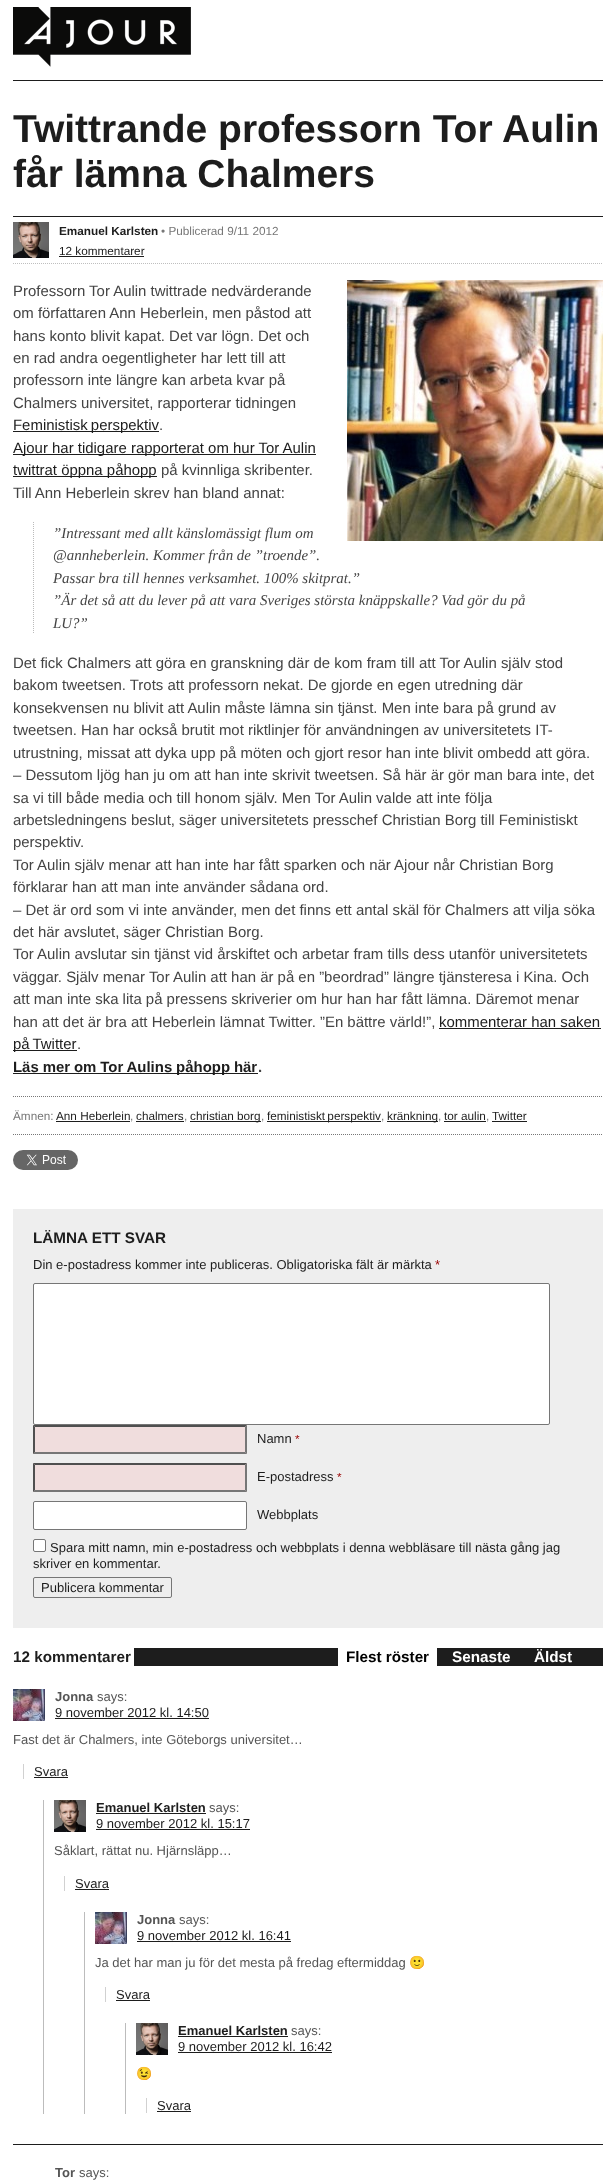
<svg xmlns="http://www.w3.org/2000/svg" width="616" height="2180" viewBox="0 0 616 2180">
  <rect width="100%" height="100%" fill="#ffffff"/>
  <rect x="13" y="80" width="590" height="1" fill="#1d1d1d"/>
  <image x="13" y="7" width="178" height="60" href="img1.png"/>
  <rect x="13" y="216" width="590" height="1" fill="#1d1d1d"/>
  <text x="13" y="142" font-family="Liberation Sans" font-size="39" font-weight="bold" fill="#1d1d1d">Twittrande professorn Tor Aulin</text>
  <text x="13" y="187" font-family="Liberation Sans" font-size="39" font-weight="bold" fill="#1d1d1d">får lämna Chalmers</text>
  <path d="M13 263.5H603" fill="none" stroke="#bfbfbf" stroke-dasharray="1 1"/>
  <image x="13" y="222" width="36" height="36" href="img2.png"/>
  <text x="59" y="235" font-family="Liberation Sans" font-size="11.75" font-weight="bold" fill="#1d1d1d">Emanuel Karlsten</text>
  <text x="161" y="235" font-family="Liberation Sans" font-size="11.75" fill="#777777">• Publicerad 9/11 2012</text>
  <text x="59" y="255" font-family="Liberation Sans" font-size="11.75" fill="#1d1d1d">12 kommentarer</text>
  <rect x="59" y="256" width="85" height="1" fill="#1d1d1d"/>
  <text x="13" y="296" font-family="Liberation Sans" font-size="14.95" fill="#444444">Professorn Tor Aulin twittrade nedvärderande</text>
  <image x="347" y="280" width="256" height="261" href="img3.png"/>
  <text x="13" y="318" font-family="Liberation Sans" font-size="14.95" fill="#444444">om författaren Ann Heberlein, men påstod att</text>
  <text x="13" y="341" font-family="Liberation Sans" font-size="14.95" fill="#444444">hans konto blivit kapat. Det var lögn. Det och</text>
  <text x="13" y="363" font-family="Liberation Sans" font-size="14.95" fill="#444444">en rad andra oegentligheter har lett till att</text>
  <text x="13" y="385" font-family="Liberation Sans" font-size="14.95" fill="#444444">professorn inte längre kan arbeta kvar på</text>
  <text x="13" y="408" font-family="Liberation Sans" font-size="14.95" fill="#444444">Chalmers universitet, rapporterar tidningen</text>
  <rect x="13" y="431" width="146" height="1" fill="#1d1d1d"/>
  <text x="13" y="430" word-spacing="-1" font-family="Liberation Sans" font-size="14.95" fill="#1d1d1d">Feministisk perspektiv</text>
  <text x="159" y="430" font-family="Liberation Sans" font-size="14.95" fill="#444444">.</text>
  <rect x="13" y="454" width="303" height="1" fill="#1d1d1d"/>
  <text x="13" y="453" font-family="Liberation Sans" font-size="14.95" fill="#1d1d1d">Ajour har tidigare rapporterat om hur Tor Aulin</text>
  <rect x="13" y="476" width="144" height="1" fill="#1d1d1d"/>
  <text x="13" y="475" font-family="Liberation Sans" font-size="14.95" fill="#1d1d1d">twittrat öppna påhopp</text>
  <text x="161" y="475" font-family="Liberation Sans" font-size="14.95" fill="#444444">på kvinnliga skribenter.</text>
  <text x="13" y="498" font-family="Liberation Sans" font-size="14.95" fill="#444444">Till Ann Heberlein skrev han bland annat:</text>
  <path d="M33.5 522V634" fill="none" stroke="#bbbbbb" stroke-dasharray="1 1"/>
  <text x="53" y="538" font-family="Liberation Serif" font-size="14.95" font-style="italic" fill="#444444">”Intressant med allt känslomässigt flum om</text>
  <text x="53" y="560" font-family="Liberation Serif" font-size="14.95" font-style="italic" fill="#444444">@annheberlein. Kommer från de ”troende”.</text>
  <text x="53" y="583" font-family="Liberation Serif" font-size="14.95" font-style="italic" fill="#444444">Passar bra till hennes verksamhet. 100% skitprat.”</text>
  <text x="53" y="605" font-family="Liberation Serif" font-size="14.95" font-style="italic" fill="#444444">”Är det så att du lever på att vara Sveriges största knäppskalle? Vad gör du på</text>
  <text x="53" y="628" font-family="Liberation Serif" font-size="14.95" font-style="italic" fill="#444444">LU?”</text>
  <text x="13" y="668" font-family="Liberation Sans" font-size="14.95" fill="#444444">Det fick Chalmers att göra en granskning där de kom fram till att Tor Aulin själv stod</text>
  <text x="13" y="690" font-family="Liberation Sans" font-size="14.95" fill="#444444">bakom tweetsen. Trots att professorn nekat. De gjorde en egen utredning där</text>
  <text x="13" y="713" font-family="Liberation Sans" font-size="14.95" fill="#444444">konsekvensen nu blivit att Aulin måste lämna sin tjänst. Men inte bara på grund av</text>
  <text x="13" y="735" font-family="Liberation Sans" font-size="14.95" fill="#444444">tweetsen. Han har också brutit mot riktlinjer för användningen av universitetets IT-</text>
  <text x="13" y="758" font-family="Liberation Sans" font-size="14.95" fill="#444444">utrustning, missat att dyka upp på möten och gjort resor han inte blivit ombedd att göra.</text>
  <text x="13" y="780" font-family="Liberation Sans" font-size="14.95" fill="#444444">– Dessutom ljög han ju om att han inte skrivit tweetsen. Så här är gör man bara inte, det</text>
  <text x="13" y="803" font-family="Liberation Sans" font-size="14.95" fill="#444444">sa vi till både media och till honom själv. Men Tor Aulin valde att inte följa</text>
  <text x="13" y="825" font-family="Liberation Sans" font-size="14.95" fill="#444444">arbetsledningens beslut, säger universitetets presschef Christian Borg till Feministiskt</text>
  <text x="13" y="847" font-family="Liberation Sans" font-size="14.95" fill="#444444">perspektiv.</text>
  <text x="13" y="870" font-family="Liberation Sans" font-size="14.95" fill="#444444">Tor Aulin själv menar att han inte har fått sparken och när Ajour når Christian Borg</text>
  <text x="13" y="892" font-family="Liberation Sans" font-size="14.95" fill="#444444">förklarar han att man inte använder sådana ord.</text>
  <text x="13" y="915" font-family="Liberation Sans" font-size="14.95" fill="#444444">– Det är ord som vi inte använder, men det finns ett antal skäl för Chalmers att vilja söka</text>
  <text x="13" y="937" font-family="Liberation Sans" font-size="14.95" fill="#444444">det här avslutet, säger Christian Borg.</text>
  <text x="13" y="959" font-family="Liberation Sans" font-size="14.95" fill="#444444">Tor Aulin avslutar sin tjänst vid årskiftet och arbetar fram tills dess utanför universitetets</text>
  <text x="13" y="982" font-family="Liberation Sans" font-size="14.95" fill="#444444">väggar. Själv menar Tor Aulin att han är på en ”beordrad” längre tjänsteresa i Kina. Och</text>
  <text x="13" y="1004" font-family="Liberation Sans" font-size="14.95" fill="#444444">att man inte ska lita på pressens skriverier om hur han har fått lämna. Däremot menar</text>
  <text x="13" y="1027" font-family="Liberation Sans" font-size="14.95" fill="#444444">han att det är bra att Heberlein lämnat Twitter. ”En bättre värld!”,</text>
  <text x="439" y="1027" font-family="Liberation Sans" font-size="14.95" fill="#1d1d1d">kommenterar han saken</text>
  <rect x="439" y="1028" width="162" height="1" fill="#1d1d1d"/>
  <rect x="13" y="1050" width="64" height="1" fill="#1d1d1d"/>
  <text x="13" y="1049" word-spacing="-1" font-family="Liberation Sans" font-size="14.95" fill="#1d1d1d">på Twitter</text>
  <text x="77" y="1049" font-family="Liberation Sans" font-size="14.95" fill="#444444">.</text>
  <rect x="13" y="1073" width="245" height="1" fill="#1d1d1d"/>
  <text x="13" y="1072" word-spacing="-0.25" font-family="Liberation Sans" font-size="14.95" font-weight="bold" fill="#1d1d1d">Läs mer om Tor Aulins påhopp här</text>
  <text x="258" y="1072" font-family="Liberation Sans" font-size="14.95" font-weight="bold" fill="#444444">.</text>
  <path d="M13 1096.5H603" fill="none" stroke="#777777" stroke-dasharray="1 1"/>
  <path d="M13 1134.5H603" fill="none" stroke="#777777" stroke-dasharray="1 1"/>
  <text x="13" y="1120" font-family="Liberation Sans" font-size="11.75" fill="#777777">Ämnen:</text>
  <text x="56" y="1120" font-family="Liberation Sans" font-size="11.75" fill="#1d1d1d">Ann Heberlein</text>
  <rect x="56" y="1121" width="74" height="1" fill="#1d1d1d"/>
  <text x="130" y="1120" font-family="Liberation Sans" font-size="11.75" fill="#777777">,</text>
  <text x="136" y="1120" font-family="Liberation Sans" font-size="11.75" fill="#1d1d1d">chalmers</text>
  <rect x="136" y="1121" width="48" height="1" fill="#1d1d1d"/>
  <text x="184" y="1120" font-family="Liberation Sans" font-size="11.75" fill="#777777">,</text>
  <rect x="190" y="1121" width="71" height="1" fill="#1d1d1d"/>
  <text x="190" y="1120" font-family="Liberation Sans" font-size="11.75" fill="#1d1d1d">christian borg</text>
  <text x="261" y="1120" font-family="Liberation Sans" font-size="11.75" fill="#777777">,</text>
  <rect x="267" y="1121" width="114" height="1" fill="#1d1d1d"/>
  <text x="267" y="1120" word-spacing="-1" font-family="Liberation Sans" font-size="11.75" fill="#1d1d1d">feministiskt perspektiv</text>
  <text x="381" y="1120" font-family="Liberation Sans" font-size="11.75" fill="#777777">,</text>
  <rect x="387" y="1121" width="51" height="1" fill="#1d1d1d"/>
  <text x="387" y="1120" font-family="Liberation Sans" font-size="11.75" fill="#1d1d1d">kränkning</text>
  <text x="438" y="1120" font-family="Liberation Sans" font-size="11.75" fill="#777777">,</text>
  <text x="444" y="1120" font-family="Liberation Sans" font-size="11.75" fill="#1d1d1d">tor aulin</text>
  <rect x="444" y="1121" width="42" height="1" fill="#1d1d1d"/>
  <text x="486" y="1120" font-family="Liberation Sans" font-size="11.75" fill="#777777">,</text>
  <text x="492" y="1120" font-family="Liberation Sans" font-size="11.75" fill="#1d1d1d">Twitter</text>
  <rect x="492" y="1121" width="35" height="1" fill="#1d1d1d"/>
  <image x="13" y="1150" width="65" height="20" href="img4.png"/>
  <rect x="13" y="1209" width="590" height="419" fill="#eeeeee"/>
  <text x="33" y="1243" font-family="Liberation Sans" font-size="15.25" font-weight="bold" fill="#1d1d1d">LÄMNA ETT SVAR</text>
  <text x="33" y="1269" font-family="Liberation Sans" font-size="13" fill="#1d1d1d">Din e-postadress kommer inte publiceras. Obligatoriska fält är märkta</text>
  <text x="435" y="1269" font-family="Liberation Sans" font-size="13" fill="#990000">*</text>
  <rect x="33.5" y="1283.5" width="516" height="141" rx="1.5" fill="#ffffff" stroke="#767676"/>
  <rect x="33" y="1425" width="214" height="29" fill="#f0dddd"/>
  <path d="M33 1425H247L245 1427H35Z" fill="#4f4f4f"/>
  <path d="M247 1425V1454L245 1452V1427Z" fill="#767676"/>
  <path d="M247 1454H33L35 1452H245Z" fill="#767676"/>
  <path d="M33 1454V1425L35 1427V1452Z" fill="#4f4f4f"/>
  <text x="257" y="1443" font-family="Liberation Sans" font-size="13" fill="#1d1d1d">Namn</text>
  <text x="295" y="1443" font-family="Liberation Sans" font-size="11.75" fill="#990000">*</text>
  <rect x="33" y="1463" width="214" height="29" fill="#f0dddd"/>
  <path d="M33 1463H247L245 1465H35Z" fill="#4f4f4f"/>
  <path d="M247 1463V1492L245 1490V1465Z" fill="#767676"/>
  <path d="M247 1492H33L35 1490H245Z" fill="#767676"/>
  <path d="M33 1492V1463L35 1465V1490Z" fill="#4f4f4f"/>
  <text x="257" y="1481" font-family="Liberation Sans" font-size="13" fill="#1d1d1d">E-postadress</text>
  <text x="337" y="1481" font-family="Liberation Sans" font-size="11.75" fill="#990000">*</text>
  <rect x="33.5" y="1501.5" width="213" height="28" rx="1.5" fill="#ffffff" stroke="#767676"/>
  <text x="257" y="1519" font-family="Liberation Sans" font-size="13" fill="#1d1d1d">Webbplats</text>
  <rect x="33.5" y="1539.5" width="12" height="12" rx="1.5" fill="#ffffff" stroke="#767676"/>
  <text x="50" y="1552" font-family="Liberation Sans" font-size="13" fill="#1d1d1d">Spara mitt namn, min e-postadress och webbplats i denna webbläsare till nästa gång jag</text>
  <text x="33" y="1568" font-family="Liberation Sans" font-size="13" fill="#1d1d1d">skriver en kommentar.</text>
  <rect x="33.5" y="1577.5" width="138" height="20" rx="1.5" fill="none" stroke="#767676"/>
  <text x="41" y="1592" font-family="Liberation Sans" font-size="13" fill="#1d1d1d">Publicera kommentar</text>
  <rect x="134" y="1648" width="469" height="18" fill="#1d1d1d"/>
  <text x="13" y="1662" font-family="Liberation Sans" font-size="15.25" font-weight="bold" fill="#1d1d1d">12 kommentarer</text>
  <rect x="338" y="1648" width="99" height="18" fill="#ffffff"/>
  <text x="346" y="1662" font-family="Liberation Sans" font-size="15.25" font-weight="bold" fill="#000000">Flest röster</text>
  <text x="452" y="1662" font-family="Liberation Sans" font-size="15.25" font-weight="bold" fill="#ffffff">Senaste</text>
  <text x="534" y="1662" font-family="Liberation Sans" font-size="15.25" font-weight="bold" fill="#ffffff">Äldst</text>
  <rect x="13" y="2144" width="590" height="1" fill="#1d1d1d"/>
  <image x="13" y="1689" width="32" height="32" href="img5.png"/>
  <text x="55" y="1701" font-family="Liberation Sans" font-size="13" font-weight="bold" fill="#555555">Jonna</text>
  <text x="97" y="1701" font-family="Liberation Sans" font-size="13" fill="#555555">says:</text>
  <text x="55" y="1717" font-family="Liberation Sans" font-size="13" fill="#1d1d1d">9 november 2012 kl. 14:50</text>
  <rect x="55" y="1718" width="154" height="1" fill="#1d1d1d"/>
  <text x="13" y="1744" font-family="Liberation Sans" font-size="13" fill="#555555">Fast det är Chalmers, inte Göteborgs universitet…</text>
  <rect x="23" y="1764" width="1" height="15" fill="#d1d1d1"/>
  <text x="34" y="1776" font-family="Liberation Sans" font-size="13" fill="#1d1d1d">Svara</text>
  <rect x="34" y="1777" width="34" height="1" fill="#1d1d1d"/>
  <rect x="43" y="1800" width="1" height="314" fill="#bcbcbc"/>
  <image x="54" y="1800" width="32" height="32" href="img6.png"/>
  <text x="96" y="1812" font-family="Liberation Sans" font-size="13" font-weight="bold" fill="#1d1d1d">Emanuel Karlsten</text>
  <rect x="96" y="1813" width="110" height="1" fill="#1d1d1d"/>
  <text x="209" y="1812" font-family="Liberation Sans" font-size="13" fill="#555555">says:</text>
  <text x="96" y="1828" font-family="Liberation Sans" font-size="13" fill="#1d1d1d">9 november 2012 kl. 15:17</text>
  <rect x="96" y="1829" width="154" height="1" fill="#1d1d1d"/>
  <text x="54" y="1855" font-family="Liberation Sans" font-size="13" fill="#555555">Såklart, rättat nu. Hjärnsläpp…</text>
  <rect x="64" y="1876" width="1" height="15" fill="#d1d1d1"/>
  <text x="75" y="1888" font-family="Liberation Sans" font-size="13" fill="#1d1d1d">Svara</text>
  <rect x="75" y="1889" width="34" height="1" fill="#1d1d1d"/>
  <rect x="84" y="1912" width="1" height="202" fill="#bcbcbc"/>
  <image x="95" y="1912" width="32" height="32" href="img5.png"/>
  <text x="137" y="1924" font-family="Liberation Sans" font-size="13" font-weight="bold" fill="#555555">Jonna</text>
  <text x="179" y="1924" font-family="Liberation Sans" font-size="13" fill="#555555">says:</text>
  <text x="137" y="1940" font-family="Liberation Sans" font-size="13" fill="#1d1d1d">9 november 2012 kl. 16:41</text>
  <rect x="137" y="1941" width="154" height="1" fill="#1d1d1d"/>
  <text x="95" y="1967" font-family="Liberation Sans" font-size="13" fill="#555555">Ja det har man ju för det mesta på fredag eftermiddag</text>
  <text x="409" y="1967" font-family="Noto Color Emoji" font-size="13" fill="#555555">🙂</text>
  <rect x="105" y="1987" width="1" height="15" fill="#d1d1d1"/>
  <text x="116" y="1999" font-family="Liberation Sans" font-size="13" fill="#1d1d1d">Svara</text>
  <rect x="116" y="2000" width="34" height="1" fill="#1d1d1d"/>
  <rect x="125" y="2023" width="1" height="91" fill="#bcbcbc"/>
  <image x="136" y="2023" width="32" height="32" href="img6.png"/>
  <text x="178" y="2035" font-family="Liberation Sans" font-size="13" font-weight="bold" fill="#1d1d1d">Emanuel Karlsten</text>
  <rect x="178" y="2036" width="110" height="1" fill="#1d1d1d"/>
  <text x="291" y="2035" font-family="Liberation Sans" font-size="13" fill="#555555">says:</text>
  <text x="178" y="2051" font-family="Liberation Sans" font-size="13" fill="#1d1d1d">9 november 2012 kl. 16:42</text>
  <rect x="178" y="2052" width="154" height="1" fill="#1d1d1d"/>
  <text x="136" y="2078" font-family="Noto Color Emoji" font-size="13" fill="#555555">😉</text>
  <rect x="146" y="2098" width="1" height="15" fill="#d1d1d1"/>
  <text x="157" y="2110" font-family="Liberation Sans" font-size="13" fill="#1d1d1d">Svara</text>
  <rect x="157" y="2111" width="34" height="1" fill="#1d1d1d"/>
  <text x="55" y="2177" font-family="Liberation Sans" font-size="13" font-weight="bold" fill="#555555">Tor</text>
  <text x="79" y="2177" font-family="Liberation Sans" font-size="13" fill="#555555">says:</text>
</svg>
